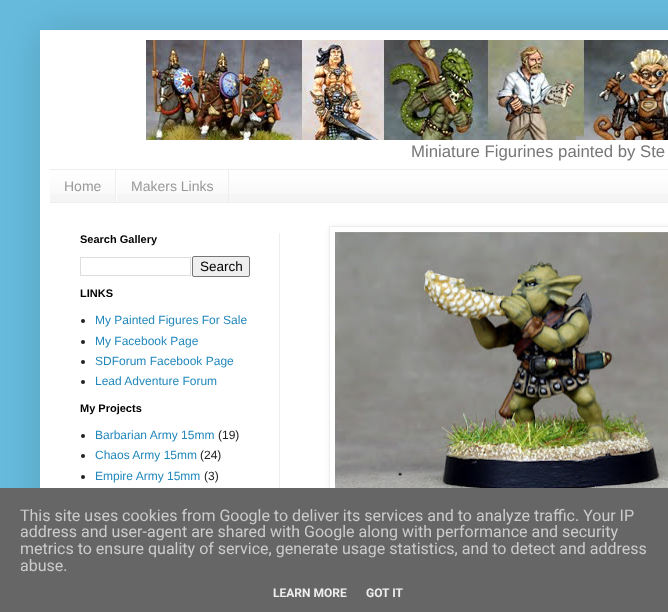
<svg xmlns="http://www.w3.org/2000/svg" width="668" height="612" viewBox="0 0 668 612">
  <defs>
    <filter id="blur1" x="-50%" y="-200%" width="200%" height="500%"><feGaussianBlur stdDeviation="20"/></filter>
    <clipPath id="clip1"><path d="M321 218H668V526H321ZM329 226H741V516H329Z" clip-rule="evenodd"/></clipPath>
    <filter id="blur2" x="-50%" y="-200%" width="200%" height="500%"><feGaussianBlur stdDeviation="2.5"/></filter>
  </defs>
  <rect width="100%" height="100%" fill="#66bbdd"/>
  <rect x="40" y="30" width="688" height="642" fill="#000000" fill-opacity="0.15" filter="url(#blur1)"/>
  <rect x="40" y="30" width="628" height="458" fill="#ffffff"/>
  <image x="146" y="40" width="522" height="100" href="img1.png"/>
  <text x="411" y="157" font-family="Liberation Sans" font-size="16.75" fill="#777777">Miniature Figurines painted by Ste</text>
  <rect x="50" y="171" width="618" height="31" fill="#f5f5f5"/>
  <image x="50" y="170" width="618" height="24" href="img2.png"/>
  <rect x="50" y="169" width="618" height="1" fill="#eeeeee"/>
  <rect x="50" y="202" width="618" height="1" fill="#eeeeee"/>
  <rect x="115" y="170" width="1" height="32" fill="#eeeeee"/>
  <text x="64" y="191" font-family="Liberation Sans" font-size="14" fill="#999999">Home</text>
  <rect x="228" y="170" width="1" height="32" fill="#eeeeee"/>
  <rect x="116" y="181" width="1" height="21" fill="#ffffff"/>
  <text x="131" y="191" font-family="Liberation Sans" font-size="14" fill="#999999">Makers Links</text>
  <text x="80" y="243" font-family="Liberation Sans" font-size="11" font-weight="bold" fill="#000000">Search Gallery</text>
  <rect x="80.5" y="257.5" width="110" height="18" fill="none" stroke="#dddddd"/>
  <rect x="192.5" y="256.5" width="57" height="20" rx="1.5" fill="#efefef" stroke="#767676"/>
  <text x="200" y="271" font-family="Liberation Sans" font-size="13.5" fill="#000000">Search</text>
  <text x="80" y="297" font-family="Liberation Sans" font-size="11" font-weight="bold" fill="#000000">LINKS</text>
  <circle cx="83" cy="321" r="2" fill="#222222"/>
  <text x="95" y="324" font-family="Liberation Sans" font-size="12" fill="#2288bb">My Painted Figures For Sale</text>
  <circle cx="83" cy="342" r="2" fill="#222222"/>
  <text x="95" y="345" font-family="Liberation Sans" font-size="12" fill="#2288bb">My Facebook Page</text>
  <circle cx="83" cy="362" r="2" fill="#222222"/>
  <text x="95" y="365" font-family="Liberation Sans" font-size="12" fill="#2288bb">SDForum Facebook Page</text>
  <circle cx="83" cy="382" r="2" fill="#222222"/>
  <text x="95" y="385" font-family="Liberation Sans" font-size="12" fill="#2288bb">Lead Adventure Forum</text>
  <text x="80" y="412" font-family="Liberation Sans" font-size="11" font-weight="bold" fill="#000000">My Projects</text>
  <circle cx="83" cy="436" r="2" fill="#222222"/>
  <text x="95" y="439" font-family="Liberation Sans" font-size="12" fill="#2288bb">Barbarian Army 15mm</text>
  <text x="218" y="439" font-family="Liberation Sans" font-size="12" fill="#222222">(19)</text>
  <circle cx="83" cy="456" r="2" fill="#222222"/>
  <text x="95" y="459" font-family="Liberation Sans" font-size="12" fill="#2288bb">Chaos Army 15mm</text>
  <text x="200" y="459" font-family="Liberation Sans" font-size="12" fill="#222222">(24)</text>
  <circle cx="83" cy="477" r="2" fill="#222222"/>
  <text x="95" y="480" font-family="Liberation Sans" font-size="12" fill="#2288bb">Empire Army 15mm</text>
  <text x="204" y="480" font-family="Liberation Sans" font-size="12" fill="#222222">(3)</text>
  <g clip-path="url(#clip1)">
    <rect x="330" y="227" width="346" height="290" fill="#000000" fill-opacity="0.1" filter="url(#blur2)"/>
  </g>
  <rect x="329.5" y="226.5" width="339" height="289" fill="none" stroke="#eeeeee"/>
  <image x="335" y="232" width="333" height="256" href="img3.png"/>
  <rect x="279" y="233" width="1" height="255" fill="#eeeeee"/>
  <rect x="0" y="488" width="668" height="124" fill="#666666"/>
  <text x="20" y="521" font-family="Roboto" font-size="16" fill="#cccccc">This site uses cookies from Google to deliver its services and to analyze traffic. Your IP</text>
  <text x="20" y="537" font-family="Roboto" font-size="16" fill="#cccccc">address and user-agent are shared with Google along with performance and security</text>
  <text x="20" y="554" font-family="Roboto" font-size="16" fill="#cccccc">metrics to ensure quality of service, generate usage statistics, and to detect and address</text>
  <text x="20" y="571" font-family="Roboto" font-size="16" fill="#cccccc">abuse.</text>
  <text x="273" y="597" font-family="Roboto" font-size="12" font-weight="bold" fill="#eeeeee">LEARN MORE</text>
  <text x="366" y="597" font-family="Roboto" font-size="12" font-weight="bold" fill="#eeeeee">GOT IT</text>
</svg>
